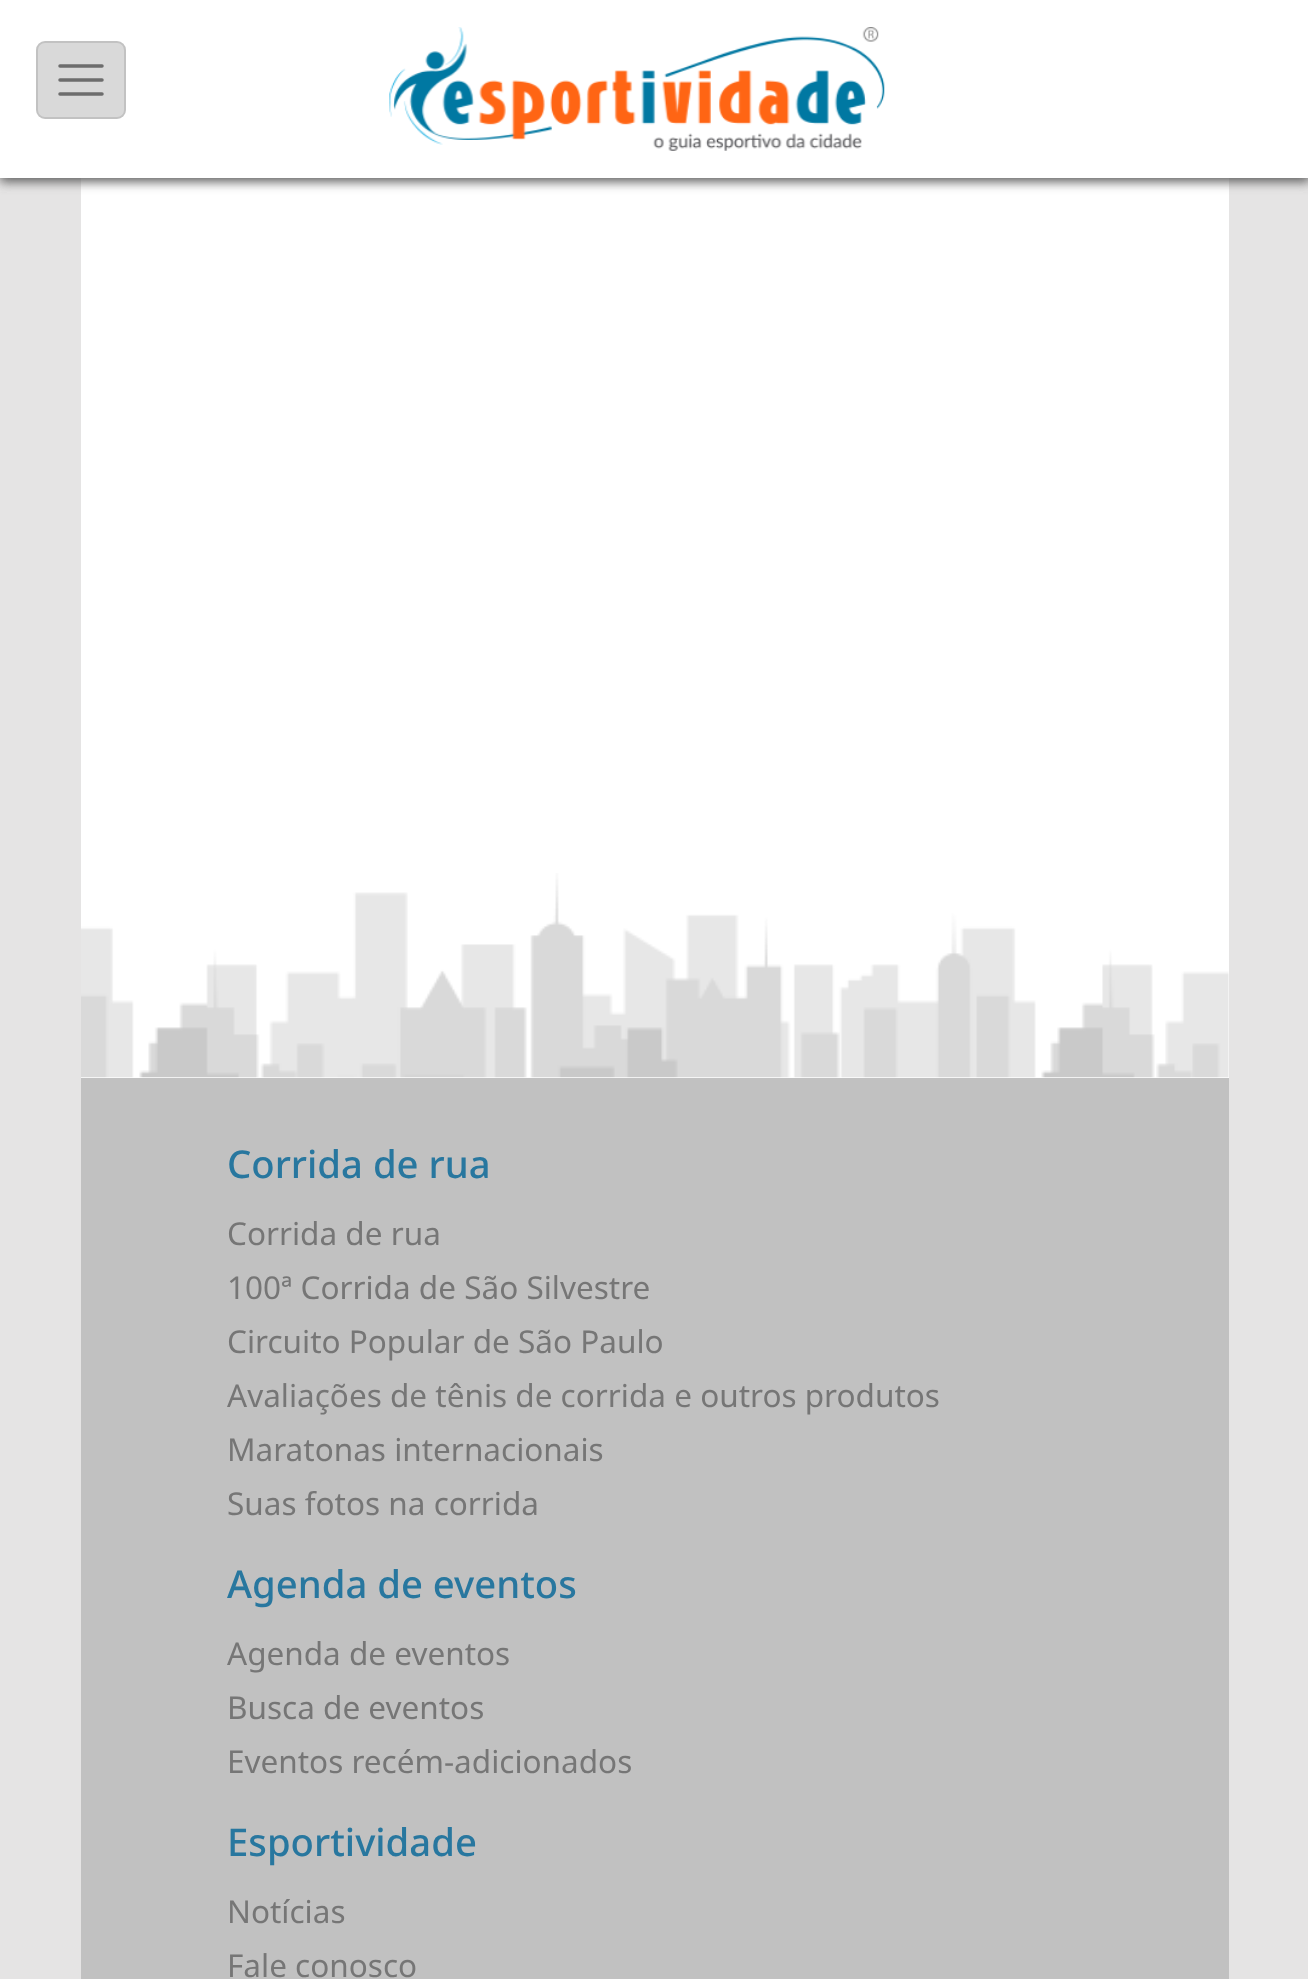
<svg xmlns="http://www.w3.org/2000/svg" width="1308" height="1979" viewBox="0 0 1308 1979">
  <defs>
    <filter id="blur1" x="-50%" y="-200%" width="200%" height="500%"><feGaussianBlur stdDeviation="5.5"/></filter>
  </defs>
  <rect width="100%" height="100%" fill="#e5e4e4"/>
  <rect x="81" y="178" width="1148" height="900" fill="#ffffff"/>
  <rect x="0" y="5" width="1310" height="177" fill="#606060" filter="url(#blur1)"/>
  <rect x="0" y="0" width="1308" height="178" fill="#ffffff"/>
  <rect x="36" y="41" width="90" height="78" rx="9" fill="#d9d9d9"/>
  <rect x="37" y="42" width="88" height="76" rx="8" fill="none" stroke="#000000" stroke-opacity="0.1" stroke-width="2"/>
  <path d="M60 66H102M60 80H102M60 94H102" fill="none" stroke="#6d6d6d" stroke-width="3.5" stroke-linecap="round"/>
  <image x="389" y="27" width="496" height="124" href="img1.png"/>
  <image x="81" y="873" width="1148" height="205" href="img2.png"/>
  <rect x="81" y="1078" width="1148" height="901" fill="#c1c1c1"/>
  <text x="227" y="1178" font-family="Noto Sans" font-size="38.25" font-weight="500" fill="#28779f">Corrida de rua</text>
  <text x="227" y="1245" font-family="Noto Sans" font-size="31.5" fill="#767676">Corrida de rua</text>
  <text x="227" y="1299" font-family="Noto Sans" font-size="31.5" fill="#767676">100ª Corrida de São Silvestre</text>
  <text x="227" y="1353" font-family="Noto Sans" font-size="31.5" fill="#767676">Circuito Popular de São Paulo</text>
  <text x="227" y="1407" font-family="Noto Sans" font-size="31.5" fill="#767676">Avaliações de tênis de corrida e outros produtos</text>
  <text x="227" y="1461" font-family="Noto Sans" font-size="31.5" fill="#767676">Maratonas internacionais</text>
  <text x="227" y="1515" font-family="Noto Sans" font-size="31.5" fill="#767676">Suas fotos na corrida</text>
  <text x="227" y="1598" font-family="Noto Sans" font-size="38.25" font-weight="500" fill="#28779f">Agenda de eventos</text>
  <text x="227" y="1665" font-family="Noto Sans" font-size="31.5" fill="#767676">Agenda de eventos</text>
  <text x="227" y="1719" font-family="Noto Sans" font-size="31.5" fill="#767676">Busca de eventos</text>
  <text x="227" y="1773" font-family="Noto Sans" font-size="31.5" fill="#767676">Eventos recém-adicionados</text>
  <text x="227" y="1856" font-family="Noto Sans" font-size="38.25" font-weight="500" fill="#28779f">Esportividade</text>
  <text x="227" y="1923" font-family="Noto Sans" font-size="31.5" fill="#767676">Notícias</text>
  <text x="227" y="1977" font-family="Noto Sans" font-size="31.5" fill="#767676">Fale conosco</text>
</svg>
